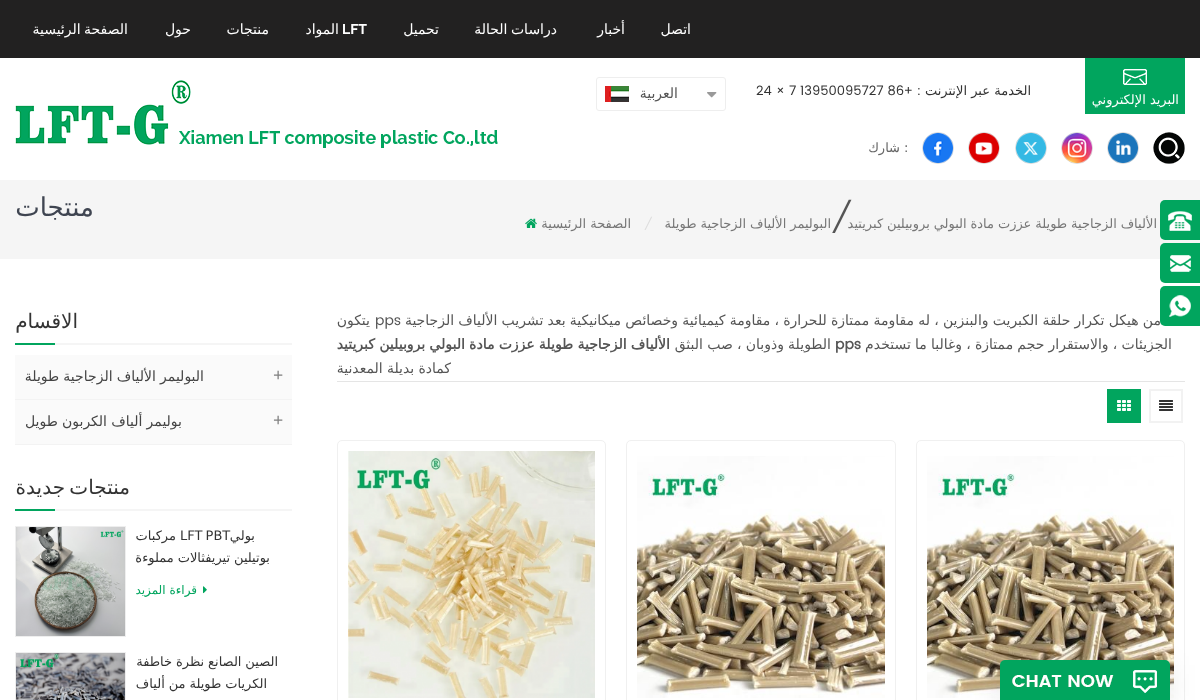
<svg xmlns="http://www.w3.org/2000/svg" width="1200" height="700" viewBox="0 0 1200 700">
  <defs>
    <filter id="blur1" x="-50%" y="-200%" width="200%" height="500%"><feGaussianBlur stdDeviation="13.5"/></filter>
  </defs>
  <rect width="100%" height="100%" fill="#ffffff"/>
  <rect x="0" y="0" width="1200" height="58" fill="#222121"/>
  <text x="691" y="34" font-family="DejaVu Sans" font-size="14" direction="rtl" fill="#ffffff">اتصل</text>
  <text x="625" y="34" font-family="DejaVu Sans" font-size="14" direction="rtl" fill="#ffffff">أخبار</text>
  <text x="557" y="34" word-spacing="-1" font-family="DejaVu Sans" font-size="14" direction="rtl" fill="#ffffff">دراسات الحالة</text>
  <text x="439" y="34" font-family="DejaVu Sans" font-size="14" direction="rtl" fill="#ffffff">تحميل</text>
  <text x="342" y="34" font-family="Raleway" font-size="14" font-weight="bold" fill="#ffffff">LFT</text>
  <text x="339" y="34" font-family="DejaVu Sans" font-size="14" direction="rtl" fill="#ffffff">المواد</text>
  <text x="269" y="34" font-family="DejaVu Sans" font-size="14" direction="rtl" fill="#ffffff">منتجات</text>
  <text x="191" y="34" font-family="DejaVu Sans" font-size="14" direction="rtl" fill="#ffffff">حول</text>
  <text x="128" y="34" word-spacing="-1" font-family="DejaVu Sans" font-size="14" direction="rtl" fill="#ffffff">الصفحة الرئيسية</text>
  <text x="1031" y="95" font-family="DejaVu Sans" font-size="13" direction="rtl" fill="#333333">الخدمة</text>
  <text x="990" y="95" font-family="DejaVu Sans" font-size="13" direction="rtl" fill="#333333">عبر</text>
  <text x="967" y="95" font-family="DejaVu Sans" font-size="13" direction="rtl" fill="#333333">الإنترنت</text>
  <text x="921" y="95" font-family="Poppins" font-size="13" direction="rtl" fill="#333333">: +</text>
  <text x="756" y="95" font-family="Poppins" font-size="13" fill="#333333">24 × 7 13950095727 86</text>
  <rect x="1085" y="58" width="100" height="56" fill="#01a55e"/>
  <image x="1123" y="69" width="24" height="16" href="img1.png"/>
  <text x="1179" y="104" font-family="DejaVu Sans" font-size="13" direction="rtl" fill="#ffffff">البريد الإلكتروني</text>
  <rect x="596.5" y="77.5" width="129" height="33" rx="2.5" fill="none" stroke="#eeeeee"/>
  <image x="707" y="92" width="10" height="6" href="img2.png"/>
  <text x="678" y="98" font-family="DejaVu Sans" font-size="14" direction="rtl" fill="#555555">العربية</text>
  <image x="605" y="86" width="24" height="16" href="img3.png"/>
  <image x="1153" y="132" width="32" height="32" href="img4.png"/>
  <circle cx="1123" cy="148" r="15.5" fill="none" stroke="#dadada"/>
  <image x="1108" y="133" width="30" height="30" href="img5.png"/>
  <circle cx="1077" cy="148" r="15.5" fill="none" stroke="#dadada"/>
  <image x="1062" y="133" width="30" height="30" href="img6.png"/>
  <circle cx="1031" cy="148" r="15.5" fill="none" stroke="#dadada"/>
  <image x="1016" y="133" width="30" height="30" href="img7.png"/>
  <circle cx="984" cy="148" r="15.5" fill="none" stroke="#dadada"/>
  <image x="969" y="133" width="30" height="30" href="img8.png"/>
  <circle cx="938" cy="148" r="15.5" fill="none" stroke="#dadada"/>
  <image x="923" y="133" width="30" height="30" href="img9.png"/>
  <text x="904" y="152" font-family="DejaVu Sans" font-size="13" fill="#666666">:</text>
  <text x="900" y="152" font-family="DejaVu Sans" font-size="13" direction="rtl" fill="#666666">شارك</text>
  <image x="15" y="80" width="483" height="68" href="img10.png"/>
  <rect x="0" y="180" width="1200" height="79" fill="#f5f5f5"/>
  <rect x="1160" y="200" width="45" height="40" rx="5" fill="#01a55e"/>
  <image x="1168" y="211" width="24" height="20" href="img11.png"/>
  <rect x="1160" y="243" width="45" height="40" rx="5" fill="#01a55e"/>
  <image x="1170" y="255" width="21" height="17" href="img12.png"/>
  <text x="1161" y="325" word-spacing="-0.25" font-family="DejaVu Sans" font-size="14" direction="rtl" fill="#555555">من هيكل تكرار حلقة الكبريت والبنزين ، له مقاومة ممتازة للحرارة ، مقاومة كيميائية وخصائص ميكانيكية بعد تشريب الألياف الزجاجية</text>
  <rect x="1160" y="286" width="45" height="40" rx="5" fill="#01a55e"/>
  <image x="1169" y="295" width="22" height="22" href="img13.png"/>
  <text x="831" y="228" font-family="Poppins" font-size="30" font-style="italic" fill="#555555">/</text>
  <text x="1157" y="228" word-spacing="-0.25" font-family="DejaVu Sans" font-size="13" direction="rtl" fill="#777777">الألياف الزجاجية طويلة عززت مادة البولي بروبيلين كبريتيد</text>
  <text x="831" y="228" word-spacing="-0.25" font-family="DejaVu Sans" font-size="13" direction="rtl" fill="#777777">البوليمر الألياف الزجاجية طويلة</text>
  <text x="644" y="228" font-family="Poppins" font-size="12" font-style="italic" fill="#dcdcdc">/</text>
  <text x="631" y="228" font-family="DejaVu Sans" font-size="13" direction="rtl" fill="#777777">الصفحة الرئيسية</text>
  <image x="525" y="218" width="12" height="10" href="img14.png"/>
  <text x="94" y="216" font-family="DejaVu Sans" font-size="26" direction="rtl" fill="#3f4551">منتجات</text>
  <text x="375" y="325" font-family="Poppins" font-size="14" fill="#555555">pps</text>
  <text x="370" y="325" font-family="DejaVu Sans" font-size="14" direction="rtl" fill="#555555">يتكون</text>
  <text x="1172" y="349" word-spacing="-0.25" font-family="DejaVu Sans" font-size="14" direction="rtl" fill="#555555">الجزيئات ، والاستقرار حجم ممتازة ، وغالبا ما تستخدم</text>
  <text x="835" y="349" font-family="Poppins" font-size="14" font-weight="bold" fill="#555555">pps</text>
  <text x="831" y="349" word-spacing="-0.25" font-family="DejaVu Sans" font-size="14" direction="rtl" fill="#555555">الطويلة وذوبان ، صب البثق</text>
  <text x="670" y="349" word-spacing="-0.25" font-family="DejaVu Sans" font-size="14" font-weight="bold" direction="rtl" fill="#555555">الألياف الزجاجية طويلة عززت مادة البولي بروبيلين كبريتيد</text>
  <text x="451" y="373" word-spacing="-0.25" font-family="DejaVu Sans" font-size="14" direction="rtl" fill="#555555">كمادة بديلة المعدنية</text>
  <rect x="337" y="381" width="848" height="1" fill="#e5e5e5"/>
  <rect x="1150" y="390" width="32" height="32" fill="none" stroke="#f2f2f2" stroke-width="2"/>
  <image x="1159" y="400" width="14" height="11" href="img15.png"/>
  <rect x="1107" y="389" width="34" height="34" fill="#01a55e"/>
  <image x="1117" y="400" width="14" height="11" href="img16.png"/>
  <rect x="916.5" y="440.5" width="268" height="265" rx="4.5" fill="none" stroke="#f0f0f0"/>
  <image x="927" y="456" width="247" height="242" href="img17.png"/>
  <rect x="626.5" y="440.5" width="269" height="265" rx="4.5" fill="none" stroke="#f0f0f0"/>
  <image x="637" y="456" width="248" height="242" href="img18.png"/>
  <rect x="337.5" y="440.5" width="268" height="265" rx="4.5" fill="none" stroke="#f0f0f0"/>
  <image x="348" y="451" width="247" height="247" href="img19.png"/>
  <rect x="55" y="343" width="237" height="2" fill="#f5f5f5"/>
  <text x="78" y="328" font-family="DejaVu Sans" font-size="20" direction="rtl" fill="#333333">الاقسام</text>
  <rect x="15" y="343" width="40" height="2" fill="#01a55e"/>
  <rect x="15" y="355" width="277" height="89" fill="#fafafa"/>
  <text x="273" y="381" font-family="Liberation Serif" font-size="18" font-weight="bold" fill="#808080">+</text>
  <rect x="15" y="399" width="277" height="1" fill="#f3f3f3"/>
  <text x="204" y="381" word-spacing="-0.25" font-family="DejaVu Sans" font-size="14" direction="rtl" fill="#444444">البوليمر الألياف الزجاجية طويلة</text>
  <text x="273" y="426" font-family="Liberation Serif" font-size="18" font-weight="bold" fill="#808080">+</text>
  <rect x="15" y="444" width="277" height="1" fill="#f3f3f3"/>
  <text x="182" y="426" word-spacing="-0.25" font-family="DejaVu Sans" font-size="14" direction="rtl" fill="#444444">بوليمر ألياف الكربون طويل</text>
  <rect x="55" y="509" width="237" height="2" fill="#f5f5f5"/>
  <text x="130" y="494" word-spacing="-2" font-family="DejaVu Sans" font-size="20" direction="rtl" fill="#333333">منتجات جديدة</text>
  <rect x="15" y="509" width="40" height="2" fill="#01a55e"/>
  <text x="180" y="540" word-spacing="-1" font-family="DejaVu Sans" font-size="13" fill="#333333">LFT PBT</text>
  <text x="255" y="540" font-family="DejaVu Sans" font-size="13" direction="rtl" fill="#333333">بولي</text>
  <text x="176" y="540" font-family="DejaVu Sans" font-size="13" direction="rtl" fill="#333333">مركبات</text>
  <text x="270" y="562" word-spacing="-0.25" font-family="DejaVu Sans" font-size="13" direction="rtl" fill="#333333">بوتيلين تيريفثالات مملوءة</text>
  <image x="203" y="586" width="4" height="8" href="img20.png"/>
  <text x="197" y="594" font-family="DejaVu Sans" font-size="12" direction="rtl" fill="#01a55e">قراءة المزيد</text>
  <rect x="15.5" y="526.5" width="110" height="110" fill="none" stroke="#eeeeee"/>
  <image x="16" y="527" width="109" height="109" href="img21.png"/>
  <text x="278" y="666" word-spacing="-0.25" font-family="DejaVu Sans" font-size="13" direction="rtl" fill="#333333">الصين الصانع نظرة خاطفة</text>
  <text x="267" y="688" word-spacing="-0.25" font-family="DejaVu Sans" font-size="13" direction="rtl" fill="#333333">الكريات طويلة من ألياف</text>
  <rect x="15.5" y="652.5" width="110" height="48" fill="none" stroke="#eeeeee"/>
  <image x="16" y="653" width="109" height="47" href="img22.png"/>
  <rect x="1000" y="665" width="170" height="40" fill="#000000" fill-opacity="0.09" filter="url(#blur1)"/>
  <image x="1000" y="660" width="170" height="40" href="img23.png"/>
</svg>
